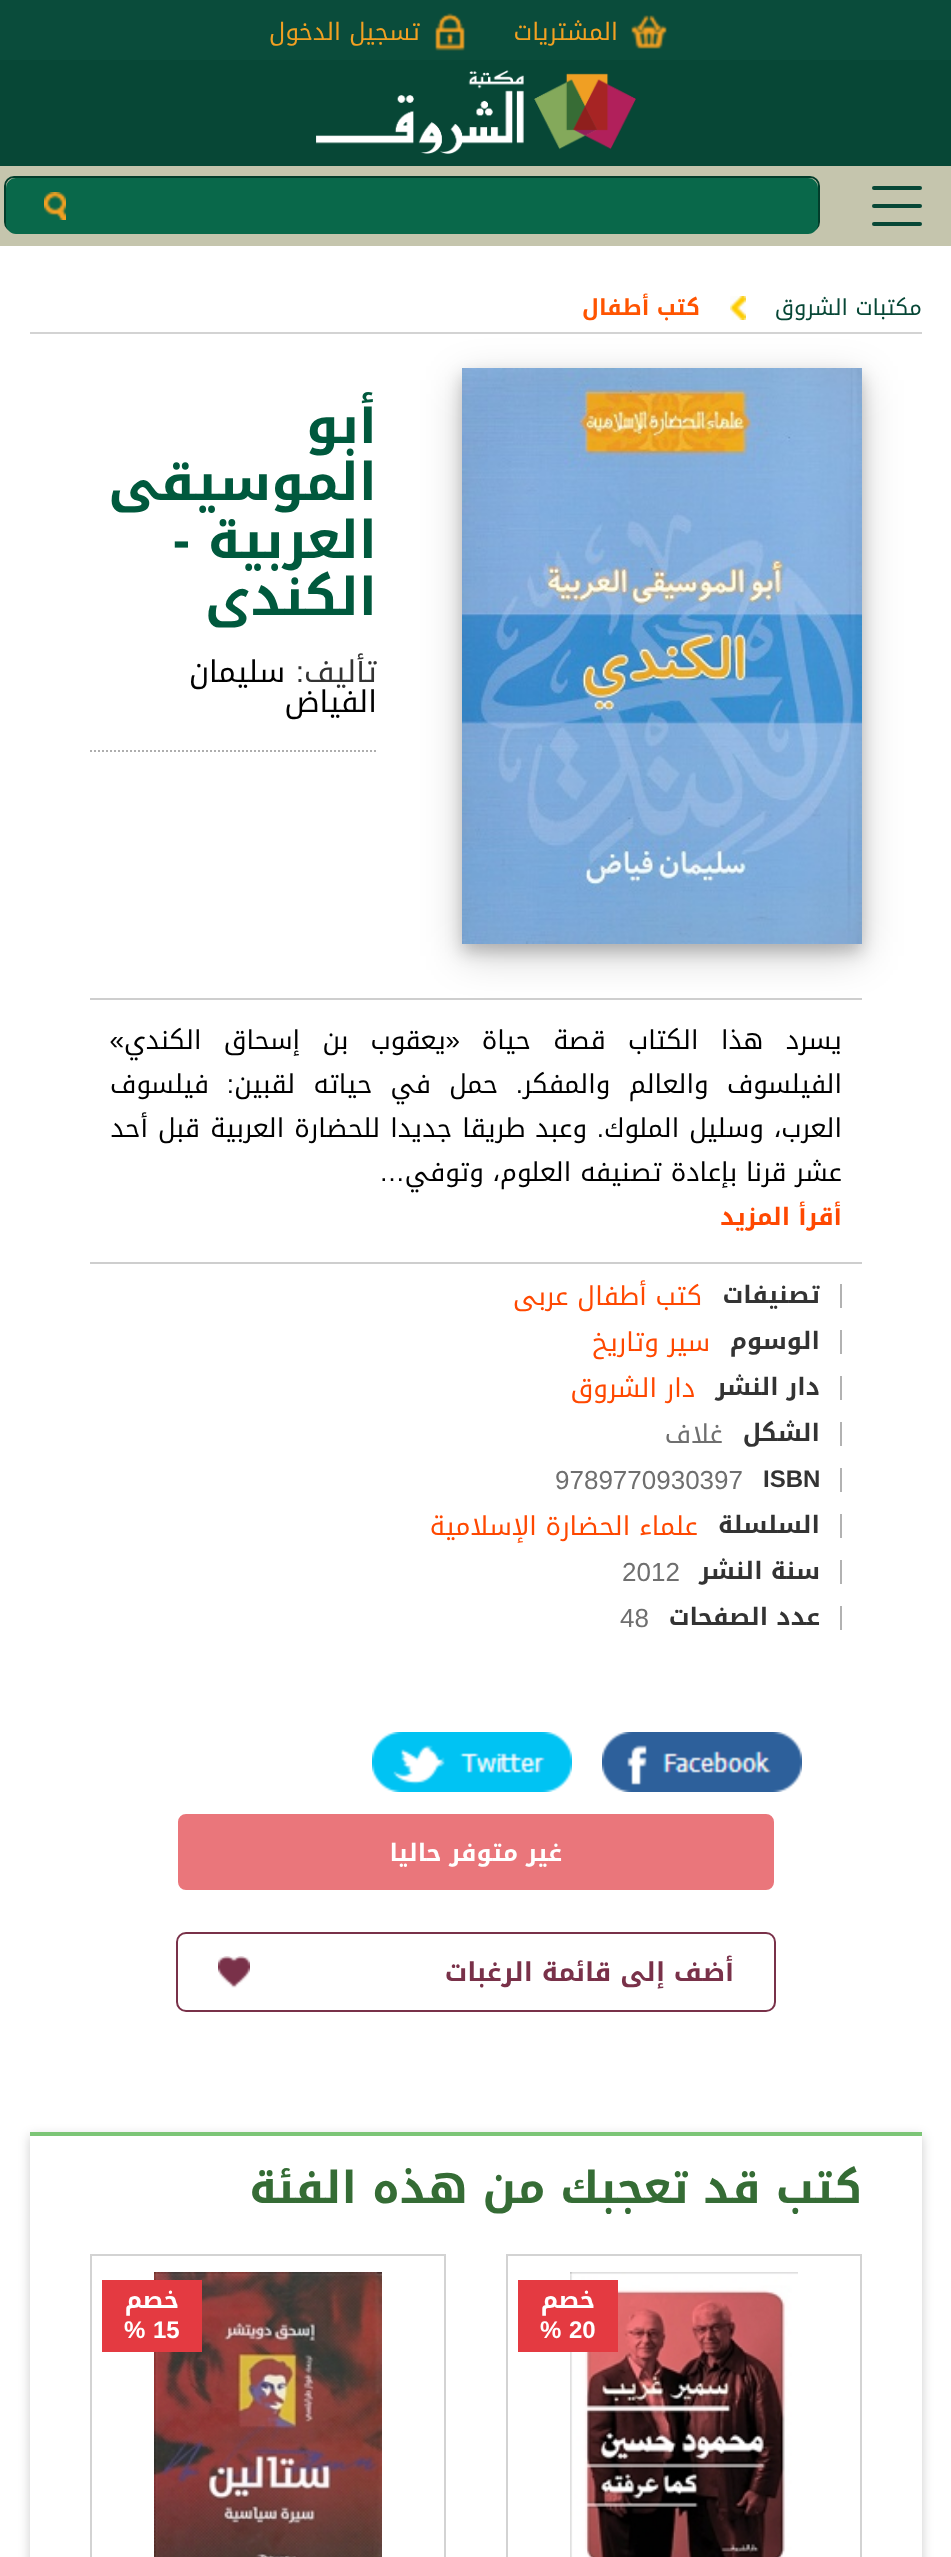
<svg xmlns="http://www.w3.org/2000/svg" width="951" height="2557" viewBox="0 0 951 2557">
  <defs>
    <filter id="blur1" x="-50%" y="-200%" width="200%" height="500%"><feGaussianBlur stdDeviation="20"/></filter>
    <filter id="blur2" x="-50%" y="-200%" width="200%" height="500%"><feGaussianBlur stdDeviation="8"/></filter>
    <clipPath id="clip1"><path d="M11 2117H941V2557H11ZM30 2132H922V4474H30Z" clip-rule="evenodd"/></clipPath>
    <filter id="blur3" x="-50%" y="-200%" width="200%" height="500%"><feGaussianBlur stdDeviation="6"/></filter>
  </defs>
  <rect width="100%" height="100%" fill="#ffffff"/>
  <rect x="0" y="60" width="951" height="106" fill="#074736"/>
  <rect x="0" y="0" width="951" height="60" fill="#0a4c3b"/>
  <image x="631" y="15" width="36" height="34" href="img1.png"/>
  <text x="618" y="40" font-family="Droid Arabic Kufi" font-size="24" direction="rtl" fill="#f2a022">المشتريات</text>
  <image x="435" y="13" width="30" height="38" href="img2.png"/>
  <text x="420" y="40" font-family="Droid Arabic Kufi" font-size="24" direction="rtl" fill="#f2a022">تسجيل الدخول</text>
  <image x="316" y="70" width="320" height="84" href="img3.png"/>
  <rect x="0" y="166" width="951" height="80" fill="#c5c5ad"/>
  <rect x="5" y="177" width="814" height="54" rx="9" fill="none" stroke="#023d2b" stroke-width="2"/>
  <path d="M30 178H808C813.5 178 818 182.5 818 188V224C818 229.5 813.5 234 808 234H30Z" fill="#09684a"/>
  <path d="M16 178H106V234H16C10.5 234 6 229.5 6 224V188C6 182.5 10.5 178 16 178Z" fill="#09684a"/>
  <image x="44" y="192" width="22" height="28" href="img4.png"/>
  <rect x="872" y="186" width="50" height="4" rx="2" fill="#074736"/>
  <rect x="872" y="204" width="50" height="4" rx="2" fill="#074736"/>
  <rect x="872" y="222" width="50" height="4" rx="2" fill="#074736"/>
  <rect x="30" y="332" width="892" height="2" fill="#d3d3d3"/>
  <image x="730" y="296" width="16" height="24" href="img5.png"/>
  <text x="922" y="315" font-family="Droid Arabic Kufi" font-size="22" direction="rtl" fill="#074736">مكتبات الشروق</text>
  <text x="700" y="315" font-family="Droid Arabic Kufi" font-size="22" font-weight="bold" direction="rtl" fill="#ff5400">كتب أطفال</text>
  <rect x="462" y="380" width="400" height="576" fill="#000000" fill-opacity="0.19" filter="url(#blur1)"/>
  <rect x="462" y="376" width="400" height="576" fill="#000000" fill-opacity="0.2" filter="url(#blur2)"/>
  <image x="462" y="368" width="400" height="576" href="img6.png"/>
  <path d="M90 751H376" fill="none" stroke="#aeaeae" stroke-width="2" stroke-dasharray="2 2"/>
  <text x="377" y="443" font-family="Droid Arabic Kufi" font-size="52" font-weight="bold" direction="rtl" fill="#00593d">أبو</text>
  <text x="377" y="500" font-family="Droid Arabic Kufi" font-size="52" font-weight="bold" direction="rtl" fill="#00593d">الموسيقى</text>
  <text x="377" y="558" font-family="Droid Arabic Kufi" font-size="52" font-weight="bold" direction="rtl" fill="#00593d">العربية</text>
  <text x="190" y="558" font-family="Liberation Sans" font-size="52" font-weight="bold" direction="rtl" fill="#00593d">-</text>
  <text x="377" y="615" font-family="Droid Arabic Kufi" font-size="52" font-weight="bold" direction="rtl" fill="#00593d">الكندى</text>
  <text x="377" y="682" font-family="Droid Arabic Kufi" font-size="30" direction="rtl" fill="#333333">تأليف</text>
  <text x="304" y="682" font-family="Liberation Sans" font-size="30" direction="rtl" fill="#333333">:</text>
  <text x="285" y="682" font-family="Droid Arabic Kufi" font-size="30" direction="rtl" fill="#000000">سليمان</text>
  <text x="377" y="712" font-family="Droid Arabic Kufi" font-size="30" direction="rtl" fill="#000000">الفياض</text>
  <rect x="90" y="998" width="772" height="2" fill="#cecece"/>
  <text x="842" y="1049" word-spacing="13.5" font-family="Droid Arabic Kufi" font-size="26" direction="rtl" fill="#000000">يسرد هذا الكتاب قصة حياة</text>
  <text x="460" y="1049" font-family="Liberation Sans" font-size="26" direction="rtl" fill="#000000">«</text>
  <text x="446" y="1049" word-spacing="13.5" font-family="Droid Arabic Kufi" font-size="26" direction="rtl" fill="#000000">يعقوب بن إسحاق الكندي</text>
  <text x="124" y="1049" font-family="Liberation Sans" font-size="26" direction="rtl" fill="#000000">»</text>
  <text x="842" y="1093" word-spacing="9.5" font-family="Droid Arabic Kufi" font-size="26" direction="rtl" fill="#000000">الفيلسوف والعالم والمفكر</text>
  <text x="523" y="1093" font-family="Liberation Sans" font-size="26" direction="rtl" fill="#000000">.</text>
  <text x="498" y="1093" word-spacing="9.5" font-family="Droid Arabic Kufi" font-size="26" direction="rtl" fill="#000000">حمل في حياته لقبين</text>
  <text x="234" y="1093" font-family="Liberation Sans" font-size="26" direction="rtl" fill="#000000">:</text>
  <text x="209" y="1093" font-family="Droid Arabic Kufi" font-size="26" direction="rtl" fill="#000000">فيلسوف</text>
  <text x="842" y="1137" word-spacing="1.25" font-family="Droid Arabic Kufi" font-size="26" direction="rtl" fill="#000000">العرب، وسليل الملوك</text>
  <text x="604" y="1137" font-family="Liberation Sans" font-size="26" direction="rtl" fill="#000000">.</text>
  <text x="587" y="1137" word-spacing="1.25" font-family="Droid Arabic Kufi" font-size="26" direction="rtl" fill="#000000">وعبد طريقا جديدا للحضارة العربية قبل أحد</text>
  <text x="842" y="1181" font-family="Droid Arabic Kufi" font-size="26" direction="rtl" fill="#000000">عشر قرنا بإعادة تصنيفه العلوم، وتوفي</text>
  <text x="379" y="1181" font-family="Liberation Sans" font-size="26" fill="#000000">…</text>
  <text x="842" y="1225" font-family="Droid Arabic Kufi" font-size="24" font-weight="bold" direction="rtl" fill="#ff4800">أقرأ المزيد</text>
  <rect x="90" y="1262" width="772" height="2" fill="#cecece"/>
  <rect x="840" y="1284" width="2" height="24" fill="#b2b2b2"/>
  <text x="820" y="1303" font-family="Droid Arabic Kufi" font-size="24" font-weight="bold" direction="rtl" fill="#333333">تصنيفات</text>
  <text x="702" y="1305" font-family="Droid Arabic Kufi" font-size="26" direction="rtl" fill="#ff4800">كتب أطفال عربى</text>
  <rect x="840" y="1330" width="2" height="24" fill="#b2b2b2"/>
  <text x="820" y="1349" font-family="Droid Arabic Kufi" font-size="24" font-weight="bold" direction="rtl" fill="#333333">الوسوم</text>
  <text x="710" y="1351" font-family="Droid Arabic Kufi" font-size="26" direction="rtl" fill="#ff4800">سير وتاريخ</text>
  <rect x="840" y="1376" width="2" height="24" fill="#b2b2b2"/>
  <text x="820" y="1395" font-family="Droid Arabic Kufi" font-size="24" font-weight="bold" direction="rtl" fill="#333333">دار النشر</text>
  <text x="695" y="1397" font-family="Droid Arabic Kufi" font-size="26" direction="rtl" fill="#ff4800">دار الشروق</text>
  <rect x="840" y="1422" width="2" height="24" fill="#b2b2b2"/>
  <text x="820" y="1441" font-family="Droid Arabic Kufi" font-size="24" font-weight="bold" direction="rtl" fill="#333333">الشكل</text>
  <text x="723" y="1443" font-family="Droid Arabic Kufi" font-size="26" direction="rtl" fill="#6f6f6f">غلاف</text>
  <rect x="840" y="1468" width="2" height="24" fill="#b2b2b2"/>
  <text x="763" y="1487" font-family="Liberation Sans" font-size="24" font-weight="bold" fill="#333333">ISBN</text>
  <text x="555" y="1489" font-family="Liberation Sans" font-size="26" fill="#6f6f6f">9789770930397</text>
  <rect x="840" y="1514" width="2" height="24" fill="#b2b2b2"/>
  <text x="820" y="1533" font-family="Droid Arabic Kufi" font-size="24" font-weight="bold" direction="rtl" fill="#333333">السلسلة</text>
  <text x="698" y="1535" font-family="Droid Arabic Kufi" font-size="26" direction="rtl" fill="#ff4800">علماء الحضارة الإسلامية</text>
  <rect x="840" y="1560" width="2" height="24" fill="#b2b2b2"/>
  <text x="820" y="1579" font-family="Droid Arabic Kufi" font-size="24" font-weight="bold" direction="rtl" fill="#333333">سنة النشر</text>
  <text x="622" y="1581" font-family="Liberation Sans" font-size="26" fill="#6f6f6f">2012</text>
  <rect x="840" y="1606" width="2" height="24" fill="#b2b2b2"/>
  <text x="820" y="1625" font-family="Droid Arabic Kufi" font-size="24" font-weight="bold" direction="rtl" fill="#333333">عدد الصفحات</text>
  <text x="620" y="1627" font-family="Liberation Sans" font-size="26" fill="#6f6f6f">48</text>
  <image x="602" y="1732" width="200" height="60" href="img7.png"/>
  <image x="372" y="1732" width="200" height="60" href="img8.png"/>
  <rect x="177" y="1813" width="598" height="78" rx="9" fill="#ea767b" stroke="#ffffff" stroke-width="2"/>
  <text x="562" y="1861" font-family="Droid Arabic Kufi" font-size="24" font-weight="bold" direction="rtl" fill="#ffffff">غير متوفر حاليا</text>
  <image x="218" y="1956" width="32" height="32" href="img9.png"/>
  <rect x="177" y="1933" width="598" height="78" rx="9" fill="none" stroke="#793149" stroke-width="2"/>
  <text x="734" y="1981" font-family="Droid Arabic Kufi" font-size="26" font-weight="bold" direction="rtl" fill="#793149">أضف إلى قائمة الرغبات</text>
  <g clip-path="url(#clip1)">
    <rect x="30" y="2136" width="892" height="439" fill="#000000" fill-opacity="0.2" filter="url(#blur3)"/>
  </g>
  <rect x="30" y="2132" width="892" height="4" fill="#7cc576"/>
  <text x="862" y="2203" font-family="Droid Arabic Kufi" font-size="44" font-weight="bold" direction="rtl" fill="#356c35">كتب قد تعجبك من هذه الفئة</text>
  <rect x="507" y="2255" width="354" height="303" fill="none" stroke="#d3d3d3" stroke-width="2"/>
  <image x="570" y="2272" width="228" height="285" href="img10.png"/>
  <rect x="518" y="2280" width="100" height="72" fill="#e43a41"/>
  <text x="595" y="2308" font-family="Droid Arabic Kufi" font-size="24" font-weight="bold" direction="rtl" fill="#ffffff">خصم</text>
  <text x="569" y="2338" font-family="Liberation Sans" font-size="24" font-weight="bold" fill="#ffffff">20</text>
  <text x="540" y="2338" font-family="Liberation Sans" font-size="24" font-weight="bold" fill="#ffffff">%</text>
  <rect x="91" y="2255" width="354" height="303" fill="none" stroke="#d3d3d3" stroke-width="2"/>
  <image x="154" y="2272" width="228" height="285" href="img11.png"/>
  <rect x="102" y="2280" width="100" height="72" fill="#e43a41"/>
  <text x="179" y="2308" font-family="Droid Arabic Kufi" font-size="24" font-weight="bold" direction="rtl" fill="#ffffff">خصم</text>
  <text x="153" y="2338" font-family="Liberation Sans" font-size="24" font-weight="bold" fill="#ffffff">15</text>
  <text x="124" y="2338" font-family="Liberation Sans" font-size="24" font-weight="bold" fill="#ffffff">%</text>
</svg>
